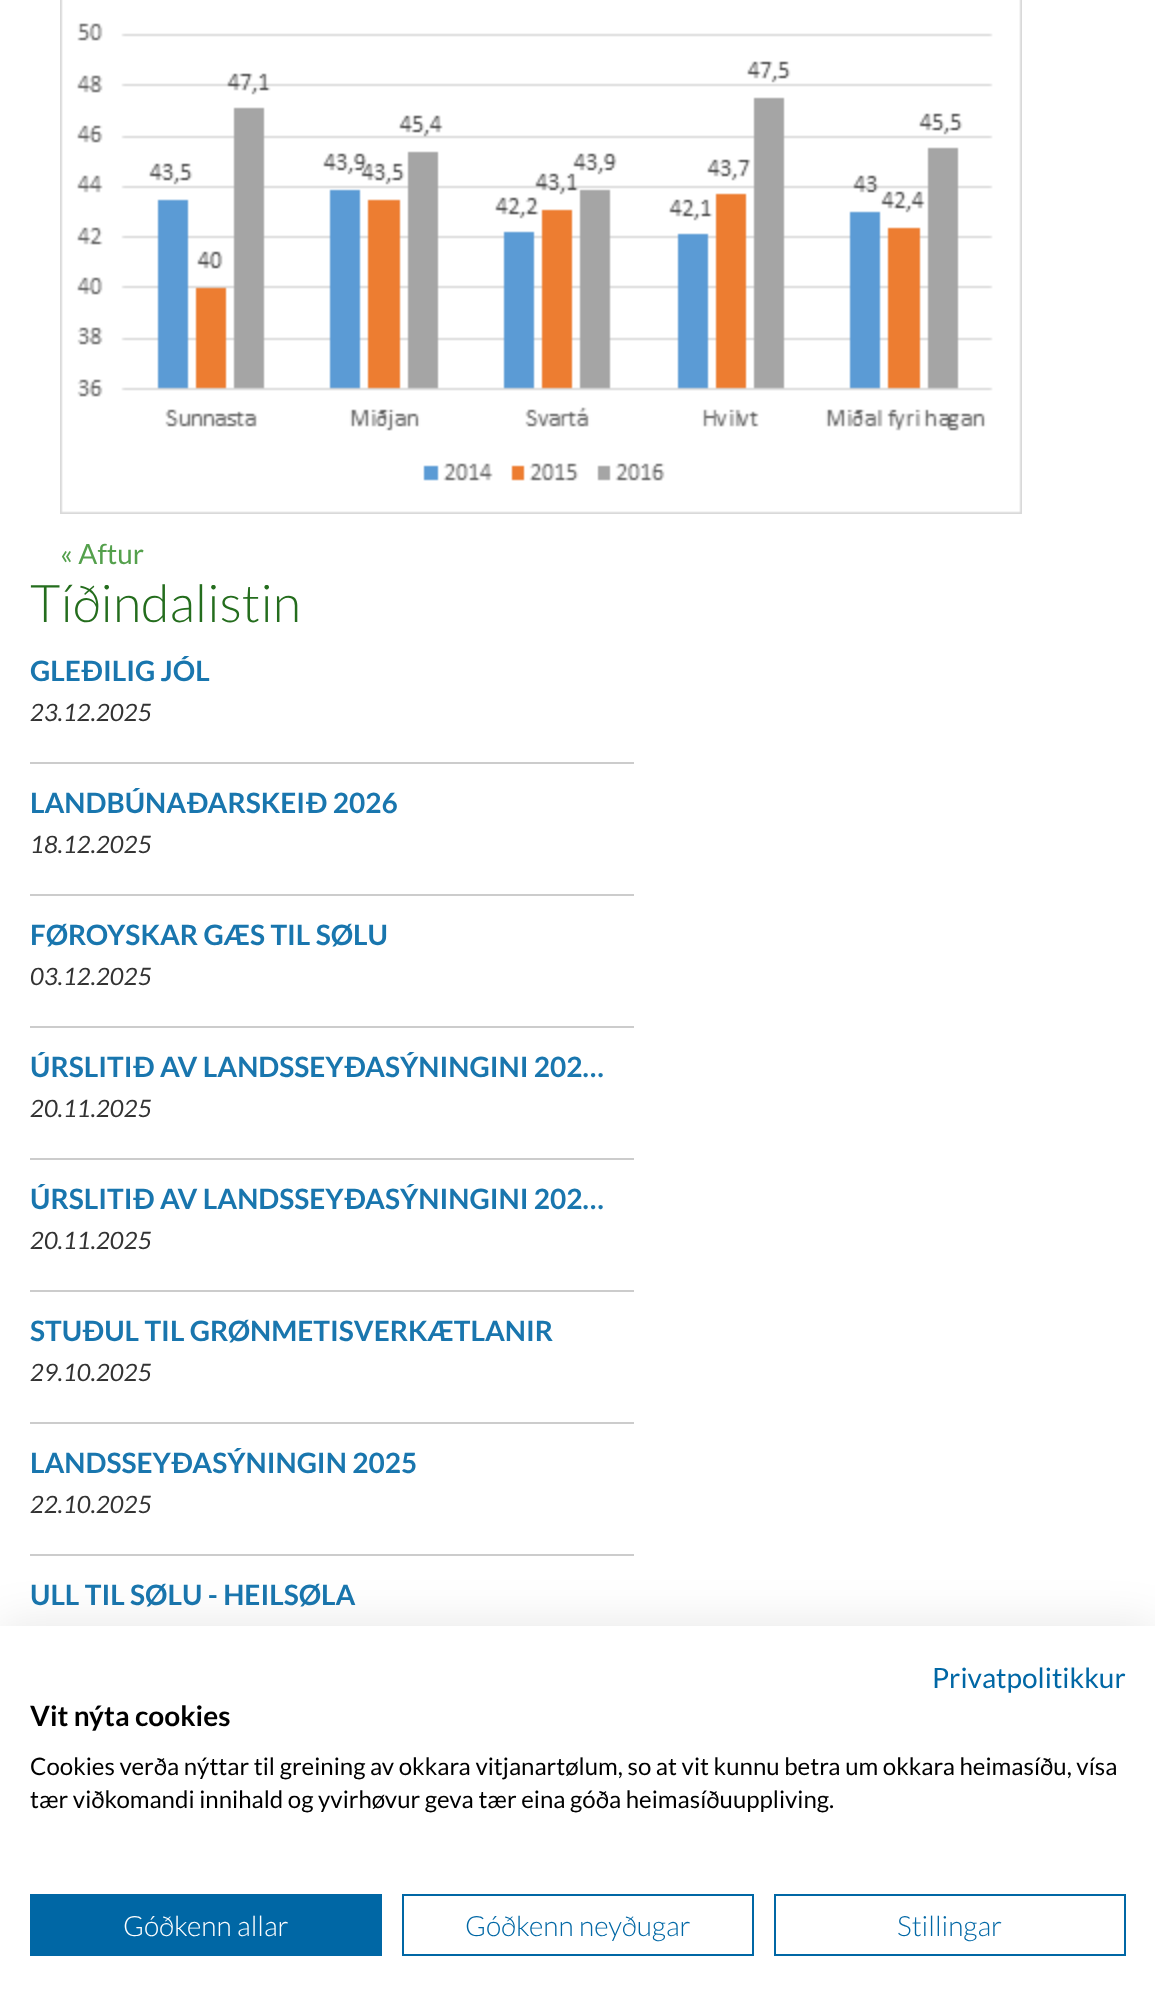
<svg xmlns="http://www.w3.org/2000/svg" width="1155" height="2009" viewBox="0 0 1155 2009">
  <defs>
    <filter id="blur1" x="-50%" y="-200%" width="200%" height="500%"><feGaussianBlur stdDeviation="24"/></filter>
  </defs>
  <rect width="100%" height="100%" fill="#ffffff"/>
  <image x="60" y="0" width="962" height="514" href="img1.png"/>
  <text x="60" y="564" font-family="Lato" font-size="28" fill="#54a04c">« Aftur</text>
  <text x="30" y="622" font-family="Lato" font-size="52" font-weight="300" fill="#246d1d">Tíðindalistin</text>
  <rect x="30" y="762" width="604" height="2" fill="#cccccc"/>
  <text x="30" y="681" font-family="Lato" font-size="28" font-weight="bold" fill="#1976ae">GLEÐILIG JÓL</text>
  <text x="30" y="721" font-family="Lato" font-size="24" font-style="italic" fill="#333333">23.12.2025</text>
  <rect x="30" y="894" width="604" height="2" fill="#cccccc"/>
  <text x="30" y="813" font-family="Lato" font-size="28" font-weight="bold" fill="#1976ae">LANDBÚNAÐARSKEIÐ 2026</text>
  <text x="30" y="853" font-family="Lato" font-size="24" font-style="italic" fill="#333333">18.12.2025</text>
  <rect x="30" y="1026" width="604" height="2" fill="#cccccc"/>
  <text x="30" y="945" font-family="Lato" font-size="28" font-weight="bold" fill="#1976ae">FØROYSKAR GÆS TIL SØLU</text>
  <text x="30" y="985" font-family="Lato" font-size="24" font-style="italic" fill="#333333">03.12.2025</text>
  <rect x="30" y="1158" width="604" height="2" fill="#cccccc"/>
  <text x="30" y="1077" font-family="Lato" font-size="28" font-weight="bold" fill="#1976ae">ÚRSLITIÐ AV LANDSSEYÐASÝNINGINI 202…</text>
  <text x="30" y="1117" font-family="Lato" font-size="24" font-style="italic" fill="#333333">20.11.2025</text>
  <rect x="30" y="1290" width="604" height="2" fill="#cccccc"/>
  <text x="30" y="1209" font-family="Lato" font-size="28" font-weight="bold" fill="#1976ae">ÚRSLITIÐ AV LANDSSEYÐASÝNINGINI 202…</text>
  <text x="30" y="1249" font-family="Lato" font-size="24" font-style="italic" fill="#333333">20.11.2025</text>
  <rect x="30" y="1422" width="604" height="2" fill="#cccccc"/>
  <text x="30" y="1341" font-family="Lato" font-size="28" font-weight="bold" fill="#1976ae">STUÐUL TIL GRØNMETISVERKÆTLANIR</text>
  <text x="30" y="1381" font-family="Lato" font-size="24" font-style="italic" fill="#333333">29.10.2025</text>
  <rect x="30" y="1554" width="604" height="2" fill="#cccccc"/>
  <text x="30" y="1473" font-family="Lato" font-size="28" font-weight="bold" fill="#1976ae">LANDSSEYÐASÝNINGIN 2025</text>
  <text x="30" y="1513" font-family="Lato" font-size="24" font-style="italic" fill="#333333">22.10.2025</text>
  <text x="30" y="1605" font-family="Lato" font-size="28" font-weight="bold" fill="#1976ae">ULL TIL SØLU - HEILSØLA</text>
  <rect x="0" y="1626" width="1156" height="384" fill="#000000" fill-opacity="0.1" filter="url(#blur1)"/>
  <rect x="0" y="1626" width="1155" height="383" fill="#ffffff"/>
  <text x="932" y="1688" font-family="Lato" font-size="28" fill="#0067a5">Privatpolitikkur</text>
  <text x="30" y="1726" font-family="Lato" font-size="28" font-weight="bold" fill="#000000">Vit nýta cookies</text>
  <text x="30" y="1775" font-family="Lato" font-size="24" fill="#000000">Cookies verða nýttar til greining av okkara vitjanartølum, so at vit kunnu betra um okkara heimasíðu, vísa</text>
  <text x="30" y="1808" font-family="Lato" font-size="24" fill="#000000">tær viðkomandi innihald og yvirhøvur geva tær eina góða heimasíðuuppliving.</text>
  <rect x="30" y="1894" width="352" height="62" fill="#0067a5"/>
  <text x="123" y="1936" font-family="Lato" font-size="28" font-weight="300" fill="#ffffff">Góðkenn allar</text>
  <rect x="403" y="1895" width="350" height="60" fill="none" stroke="#0067a5" stroke-width="2"/>
  <text x="465" y="1936" font-family="Lato" font-size="28" font-weight="300" fill="#0067a5">Góðkenn neyðugar</text>
  <rect x="775" y="1895" width="350" height="60" fill="none" stroke="#0067a5" stroke-width="2"/>
  <text x="897" y="1936" font-family="Lato" font-size="28" font-weight="300" fill="#0067a5">Stillingar</text>
</svg>
